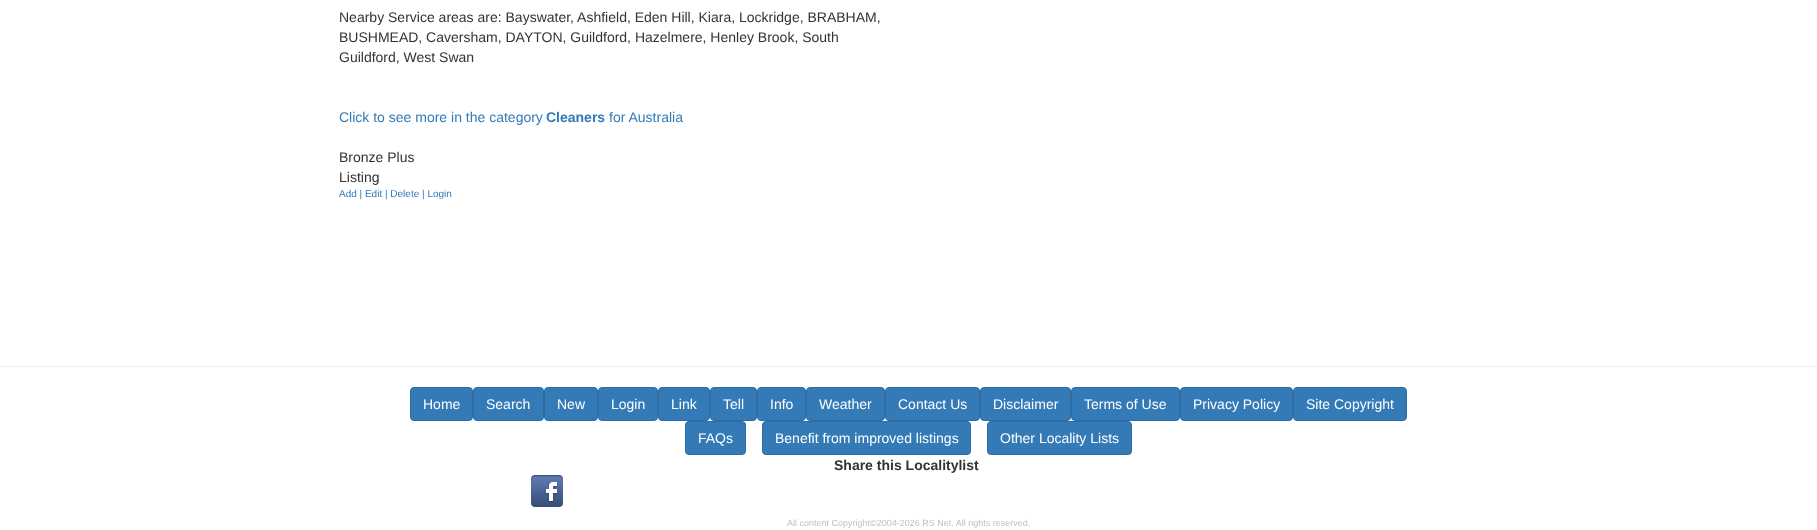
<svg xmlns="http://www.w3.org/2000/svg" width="1817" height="530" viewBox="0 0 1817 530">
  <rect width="100%" height="100%" fill="#ffffff"/>
  <text x="339" y="22" font-family="Liberation Sans" font-size="14" fill="#333333">Nearby Service areas are: Bayswater, Ashfield, Eden Hill, Kiara, Lockridge, BRABHAM,</text>
  <text x="339" y="42" font-family="Liberation Sans" font-size="14" fill="#333333">BUSHMEAD, Caversham, DAYTON, Guildford, Hazelmere, Henley Brook, South</text>
  <text x="339" y="62" font-family="Liberation Sans" font-size="14" fill="#333333">Guildford, West Swan</text>
  <text x="339" y="122" font-family="Liberation Sans" font-size="14" fill="#337ab7">Click to see more in the category</text>
  <text x="546" y="122" font-family="Liberation Sans" font-size="14" font-weight="bold" fill="#337ab7">Cleaners</text>
  <text x="609" y="122" font-family="Liberation Sans" font-size="14" fill="#337ab7">for Australia</text>
  <text x="339" y="162" font-family="Liberation Sans" font-size="14" fill="#333333">Bronze Plus</text>
  <text x="339" y="182" font-family="Liberation Sans" font-size="14" fill="#333333">Listing</text>
  <text x="339" y="197" font-family="Liberation Sans" font-size="10" fill="#337ab7">Add | Edit | Delete | Login</text>
  <rect x="0" y="366" width="1817" height="1" fill="#eeeeee"/>
  <rect x="410.5" y="387.5" width="62" height="33" rx="3.5" fill="#337ab7" stroke="#2e6da4"/>
  <text x="423" y="409" font-family="Liberation Sans" font-size="14" fill="#ffffff">Home</text>
  <rect x="473.5" y="387.5" width="70" height="33" rx="3.5" fill="#337ab7" stroke="#2e6da4"/>
  <text x="486" y="409" font-family="Liberation Sans" font-size="14" fill="#ffffff">Search</text>
  <rect x="544.5" y="387.5" width="53" height="33" rx="3.5" fill="#337ab7" stroke="#2e6da4"/>
  <text x="557" y="409" font-family="Liberation Sans" font-size="14" fill="#ffffff">New</text>
  <rect x="598.5" y="387.5" width="59" height="33" rx="3.5" fill="#337ab7" stroke="#2e6da4"/>
  <text x="611" y="409" font-family="Liberation Sans" font-size="14" fill="#ffffff">Login</text>
  <rect x="658.5" y="387.5" width="51" height="33" rx="3.5" fill="#337ab7" stroke="#2e6da4"/>
  <text x="671" y="409" font-family="Liberation Sans" font-size="14" fill="#ffffff">Link</text>
  <rect x="710.5" y="387.5" width="46" height="33" rx="3.5" fill="#337ab7" stroke="#2e6da4"/>
  <text x="723" y="409" font-family="Liberation Sans" font-size="14" fill="#ffffff">Tell</text>
  <rect x="757.5" y="387.5" width="48" height="33" rx="3.5" fill="#337ab7" stroke="#2e6da4"/>
  <text x="770" y="409" font-family="Liberation Sans" font-size="14" fill="#ffffff">Info</text>
  <rect x="806.5" y="387.5" width="78" height="33" rx="3.5" fill="#337ab7" stroke="#2e6da4"/>
  <text x="819" y="409" font-family="Liberation Sans" font-size="14" fill="#ffffff">Weather</text>
  <rect x="885.5" y="387.5" width="94" height="33" rx="3.5" fill="#337ab7" stroke="#2e6da4"/>
  <text x="898" y="409" font-family="Liberation Sans" font-size="14" fill="#ffffff">Contact Us</text>
  <rect x="980.5" y="387.5" width="90" height="33" rx="3.5" fill="#337ab7" stroke="#2e6da4"/>
  <text x="993" y="409" font-family="Liberation Sans" font-size="14" fill="#ffffff">Disclaimer</text>
  <rect x="1071.5" y="387.5" width="108" height="33" rx="3.5" fill="#337ab7" stroke="#2e6da4"/>
  <text x="1084" y="409" font-family="Liberation Sans" font-size="14" fill="#ffffff">Terms of Use</text>
  <rect x="1180.5" y="387.5" width="112" height="33" rx="3.5" fill="#337ab7" stroke="#2e6da4"/>
  <text x="1193" y="409" font-family="Liberation Sans" font-size="14" fill="#ffffff">Privacy Policy</text>
  <rect x="1293.5" y="387.5" width="113" height="33" rx="3.5" fill="#337ab7" stroke="#2e6da4"/>
  <text x="1306" y="409" font-family="Liberation Sans" font-size="14" fill="#ffffff">Site Copyright</text>
  <rect x="685.5" y="421.5" width="60" height="33" rx="3.5" fill="#337ab7" stroke="#2e6da4"/>
  <text x="698" y="443" font-family="Liberation Sans" font-size="14" fill="#ffffff">FAQs</text>
  <rect x="762.5" y="421.5" width="208" height="33" rx="3.5" fill="#337ab7" stroke="#2e6da4"/>
  <text x="775" y="443" font-family="Liberation Sans" font-size="14" fill="#ffffff">Benefit from improved listings</text>
  <rect x="987.5" y="421.5" width="144" height="33" rx="3.5" fill="#337ab7" stroke="#2e6da4"/>
  <text x="1000" y="443" font-family="Liberation Sans" font-size="14" fill="#ffffff">Other Locality Lists</text>
  <text x="834" y="470" font-family="Liberation Sans" font-size="14" font-weight="bold" fill="#333333">Share this Localitylist</text>
  <image x="531" y="475" width="32" height="32" href="img1.png"/>
  <text x="787" y="526" font-family="Liberation Sans" font-size="9" fill="#c0c0c0">All content Copyright©2004-2026 RS Net. All rights reserved.</text>
</svg>
